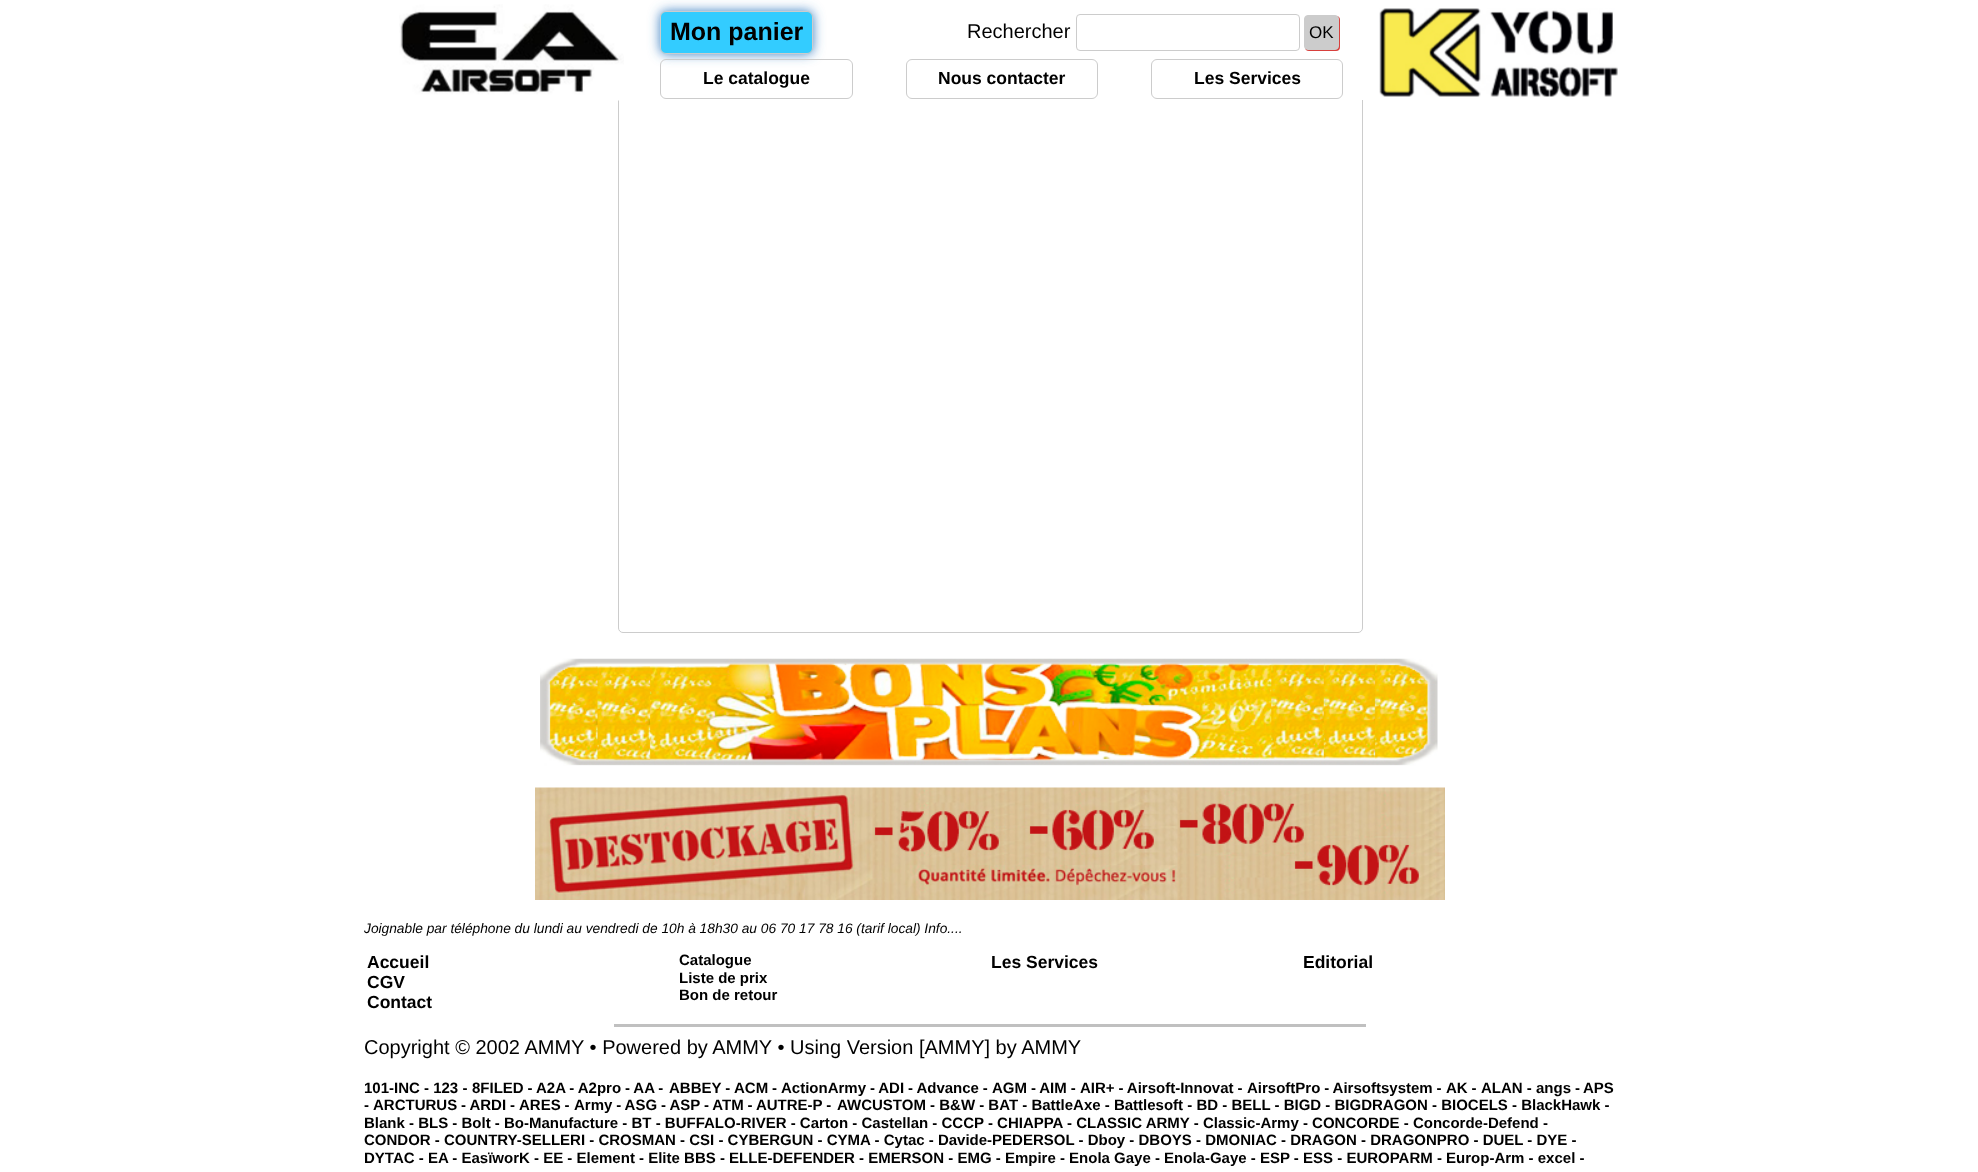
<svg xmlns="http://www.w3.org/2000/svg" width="1978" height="1172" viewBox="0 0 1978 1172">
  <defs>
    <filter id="blur1" x="-50%" y="-200%" width="200%" height="500%"><feGaussianBlur stdDeviation="6"/></filter>
    <filter id="blur2" x="-50%" y="-200%" width="200%" height="500%"><feGaussianBlur stdDeviation="0.5"/></filter>
  </defs>
  <rect width="100%" height="100%" fill="#ffffff"/>
  <rect x="618.5" y="-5.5" width="744" height="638" rx="4.5" fill="none" stroke="#cccccc"/>
  <rect x="618" y="0" width="745" height="100" fill="#ffffff"/>
  <image x="399" y="4" width="225" height="97" href="img1.png"/>
  <image x="1379" y="8" width="239" height="89" href="img2.png"/>
  <rect x="660" y="11" width="153" height="43" rx="6" fill="#4183c4" filter="url(#blur1)"/>
  <rect x="660.5" y="11.5" width="152" height="42" rx="5.5" fill="#33ccff" stroke="#cccccc"/>
  <text x="670" y="40" font-family="Liberation Sans" font-size="25" font-weight="bold" fill="#000000">Mon panier</text>
  <text x="967" y="38" font-family="Liberation Sans" font-size="20" fill="#000000">Rechercher</text>
  <rect x="1076.5" y="14.5" width="223" height="36" rx="3.5" fill="none" stroke="#cccccc"/>
  <rect x="1305" y="16" width="35" height="35" rx="4" fill="#d83f3d" filter="url(#blur2)"/>
  <rect x="1304.5" y="15.5" width="34" height="34" rx="3.5" fill="#cccccc" stroke="#cccccc"/>
  <text x="1309" y="38" font-family="Liberation Sans" font-size="17" fill="#000000">OK</text>
  <rect x="660.5" y="59.5" width="192" height="39" rx="5.5" fill="none" stroke="#cccccc"/>
  <text x="703" y="84" font-family="Liberation Sans" font-size="17.5" font-weight="bold" fill="#000000">Le catalogue</text>
  <rect x="906.5" y="59.5" width="191" height="39" rx="5.5" fill="none" stroke="#cccccc"/>
  <text x="938" y="84" font-family="Liberation Sans" font-size="17.5" font-weight="bold" fill="#000000">Nous contacter</text>
  <rect x="1151.5" y="59.5" width="191" height="39" rx="5.5" fill="none" stroke="#cccccc"/>
  <text x="1194" y="84" font-family="Liberation Sans" font-size="17.5" font-weight="bold" fill="#000000">Les Services</text>
  <image x="540" y="658" width="898" height="108" href="img3.png"/>
  <image x="535" y="787" width="910" height="113" href="img4.png"/>
  <text x="364" y="933" font-family="Liberation Sans" font-size="13.75" font-style="italic" fill="#000000">Joignable par téléphone du lundi au vendredi de 10h à 18h30 au 06 70 17 78 16 (tarif local) Info....</text>
  <text x="367" y="968" font-family="Liberation Sans" font-size="17.5" font-weight="bold" fill="#000000">Accueil</text>
  <text x="367" y="988" font-family="Liberation Sans" font-size="17.5" font-weight="bold" fill="#000000">CGV</text>
  <text x="367" y="1008" font-family="Liberation Sans" font-size="17.5" font-weight="bold" fill="#000000">Contact</text>
  <text x="679" y="965" font-family="Liberation Sans" font-size="15" font-weight="bold" fill="#000000">Catalogue</text>
  <text x="679" y="983" font-family="Liberation Sans" font-size="15" font-weight="bold" fill="#000000">Liste de prix</text>
  <text x="679" y="1000" font-family="Liberation Sans" font-size="15" font-weight="bold" fill="#000000">Bon de retour</text>
  <text x="991" y="968" font-family="Liberation Sans" font-size="17.5" font-weight="bold" fill="#000000">Les Services</text>
  <text x="1303" y="968" font-family="Liberation Sans" font-size="17.5" font-weight="bold" fill="#000000">Editorial</text>
  <rect x="614" y="1024" width="752" height="3" fill="#c0c0c0"/>
  <text x="364" y="1054" font-family="Liberation Sans" font-size="20" fill="#000000">Copyright © 2002 AMMY • Powered by AMMY • Using Version [AMMY] by AMMY</text>
  <text x="364" y="1093" font-family="Liberation Sans" font-size="15" font-weight="bold" fill="#000000">101-INC - 123 -</text>
  <text x="472" y="1093" word-spacing="-0.25" font-family="Liberation Sans" font-size="15" font-weight="bold" fill="#000000">8FILED -</text>
  <text x="536" y="1093" word-spacing="-0.25" font-family="Liberation Sans" font-size="15" font-weight="bold" fill="#000000">A2A - A2pro - AA -</text>
  <text x="669" y="1093" word-spacing="-0.25" font-family="Liberation Sans" font-size="15" font-weight="bold" fill="#000000">ABBEY -</text>
  <text x="734" y="1093" word-spacing="-0.25" font-family="Liberation Sans" font-size="15" font-weight="bold" fill="#000000">ACM -</text>
  <text x="781" y="1093" word-spacing="-0.25" font-family="Liberation Sans" font-size="15" font-weight="bold" fill="#000000">ActionArmy - ADI - Advance -</text>
  <text x="992" y="1093" word-spacing="-0.25" font-family="Liberation Sans" font-size="15" font-weight="bold" fill="#000000">AGM - AIM -</text>
  <text x="1080" y="1093" word-spacing="-0.25" font-family="Liberation Sans" font-size="15" font-weight="bold" fill="#000000">AIR+ - Airsoft-Innovat -</text>
  <text x="1247" y="1093" word-spacing="-0.25" font-family="Liberation Sans" font-size="15" font-weight="bold" fill="#000000">AirsoftPro - Airsoftsystem -</text>
  <text x="1446" y="1093" word-spacing="-0.25" font-family="Liberation Sans" font-size="15" font-weight="bold" fill="#000000">AK -</text>
  <text x="1481" y="1093" font-family="Liberation Sans" font-size="15" font-weight="bold" fill="#000000">ALAN -</text>
  <text x="1536" y="1093" word-spacing="-0.25" font-family="Liberation Sans" font-size="15" font-weight="bold" fill="#000000">angs -</text>
  <text x="1583" y="1093" font-family="Liberation Sans" font-size="15" font-weight="bold" fill="#000000">APS</text>
  <text x="364" y="1110" font-family="Liberation Sans" font-size="15" font-weight="bold" fill="#000000">-</text>
  <text x="373" y="1110" word-spacing="-0.25" font-family="Liberation Sans" font-size="15" font-weight="bold" fill="#000000">ARCTURUS - ARDI -</text>
  <text x="519" y="1110" word-spacing="-0.25" font-family="Liberation Sans" font-size="15" font-weight="bold" fill="#000000">ARES -</text>
  <text x="574" y="1110" word-spacing="-0.25" font-family="Liberation Sans" font-size="15" font-weight="bold" fill="#000000">Army - ASG - ASP - ATM - AUTRE-P -</text>
  <text x="837" y="1110" font-family="Liberation Sans" font-size="15" font-weight="bold" fill="#000000">AWCUSTOM - B&amp;W - BAT - BattleAxe - Battlesoft - BD - BELL - BIGD - BIGDRAGON - BIOCELS - BlackHawk -</text>
  <text x="364" y="1128" font-family="Liberation Sans" font-size="15" font-weight="bold" fill="#000000">Blank - BLS - Bolt - Bo-Manufacture - BT - BUFFALO-RIVER - Carton - Castellan - CCCP - CHIAPPA - CLASSIC ARMY - Classic-Army - CONCORDE - Concorde-Defend -</text>
  <text x="364" y="1145" font-family="Liberation Sans" font-size="15" font-weight="bold" fill="#000000">CONDOR - COUNTRY-SELLERI - CROSMAN - CSI - CYBERGUN - CYMA - Cytac - Davide-PEDERSOL - Dboy - DBOYS - DMONIAC - DRAGON - DRAGONPRO - DUEL - DYE -</text>
  <text x="364" y="1163" font-family="Liberation Sans" font-size="15" font-weight="bold" fill="#000000">DYTAC - EA - EasïworK - EE - Element - Elite BBS - ELLE-DEFENDER - EMERSON - EMG - Empire - Enola Gaye - Enola-Gaye - ESP - ESS - EUROPARM - Europ-Arm - excel -</text>
</svg>
